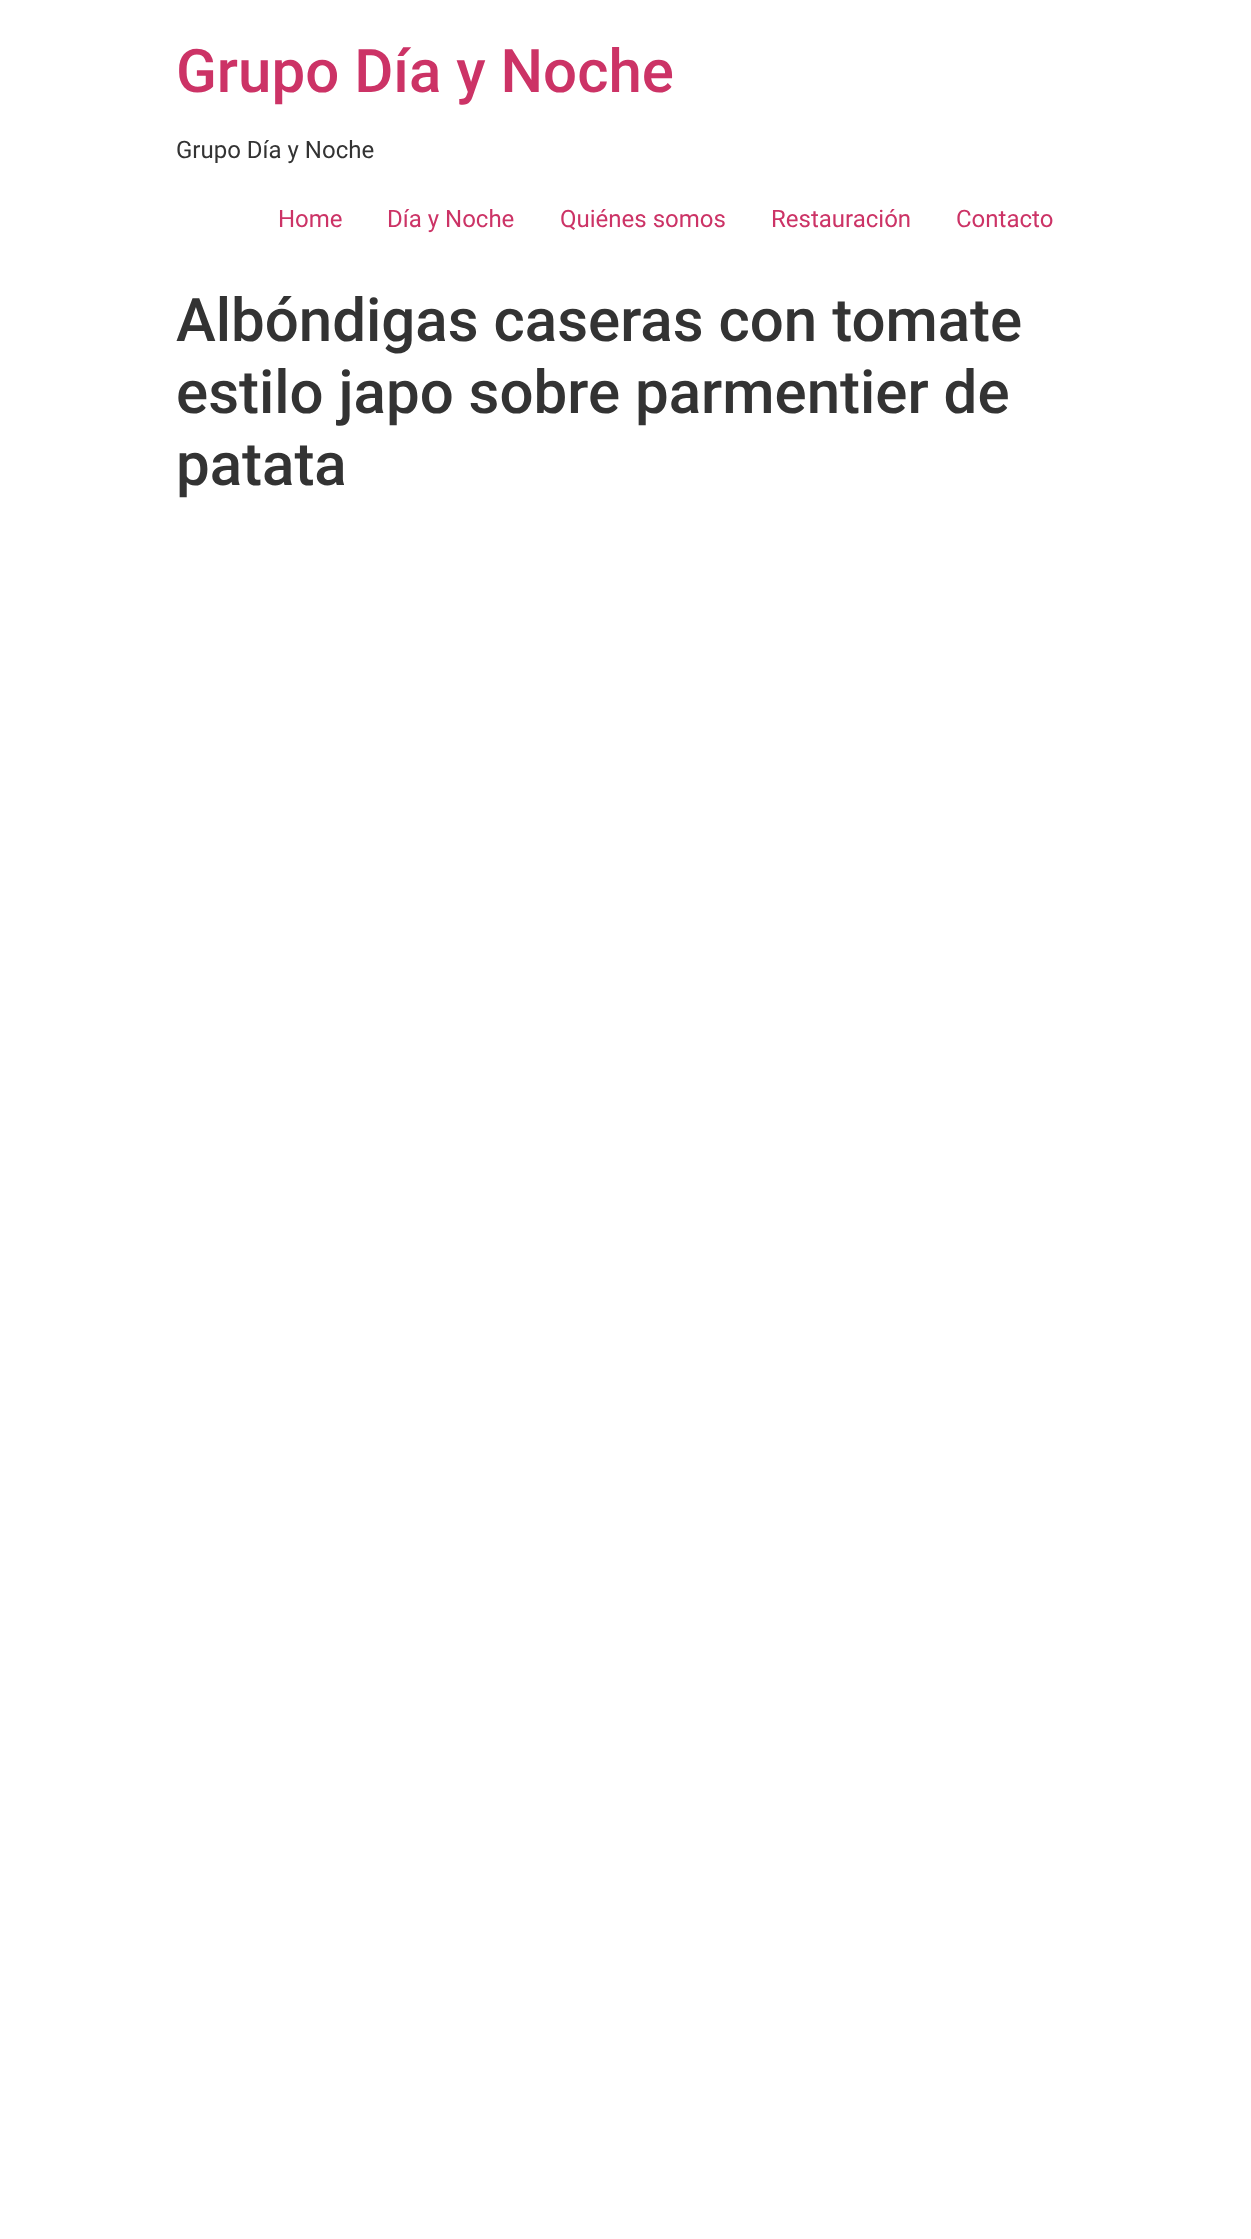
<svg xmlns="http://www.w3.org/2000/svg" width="1251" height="2239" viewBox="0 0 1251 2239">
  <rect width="100%" height="100%" fill="#ffffff"/>
  <text x="176" y="92" font-family="Roboto" font-size="60" font-weight="500" fill="#cc3366">Grupo Día y Noche</text>
  <text x="176" y="158" font-family="Roboto" font-size="24" fill="#333333">Grupo Día y Noche</text>
  <text x="278" y="227" font-family="Roboto" font-size="24" fill="#cc3366">Home</text>
  <text x="387" y="227" font-family="Roboto" font-size="24" fill="#cc3366">Día y Noche</text>
  <text x="560" y="227" font-family="Roboto" font-size="24" fill="#cc3366">Quiénes somos</text>
  <text x="771" y="227" font-family="Roboto" font-size="24" fill="#cc3366">Restauración</text>
  <text x="956" y="227" font-family="Roboto" font-size="24" fill="#cc3366">Contacto</text>
  <text x="176" y="341" font-family="Roboto" font-size="60" font-weight="500" fill="#333333">Albóndigas caseras con tomate</text>
  <text x="176" y="413" font-family="Roboto" font-size="60" font-weight="500" fill="#333333">estilo japo sobre parmentier de</text>
  <text x="176" y="485" font-family="Roboto" font-size="60" font-weight="500" fill="#333333">patata</text>
</svg>
